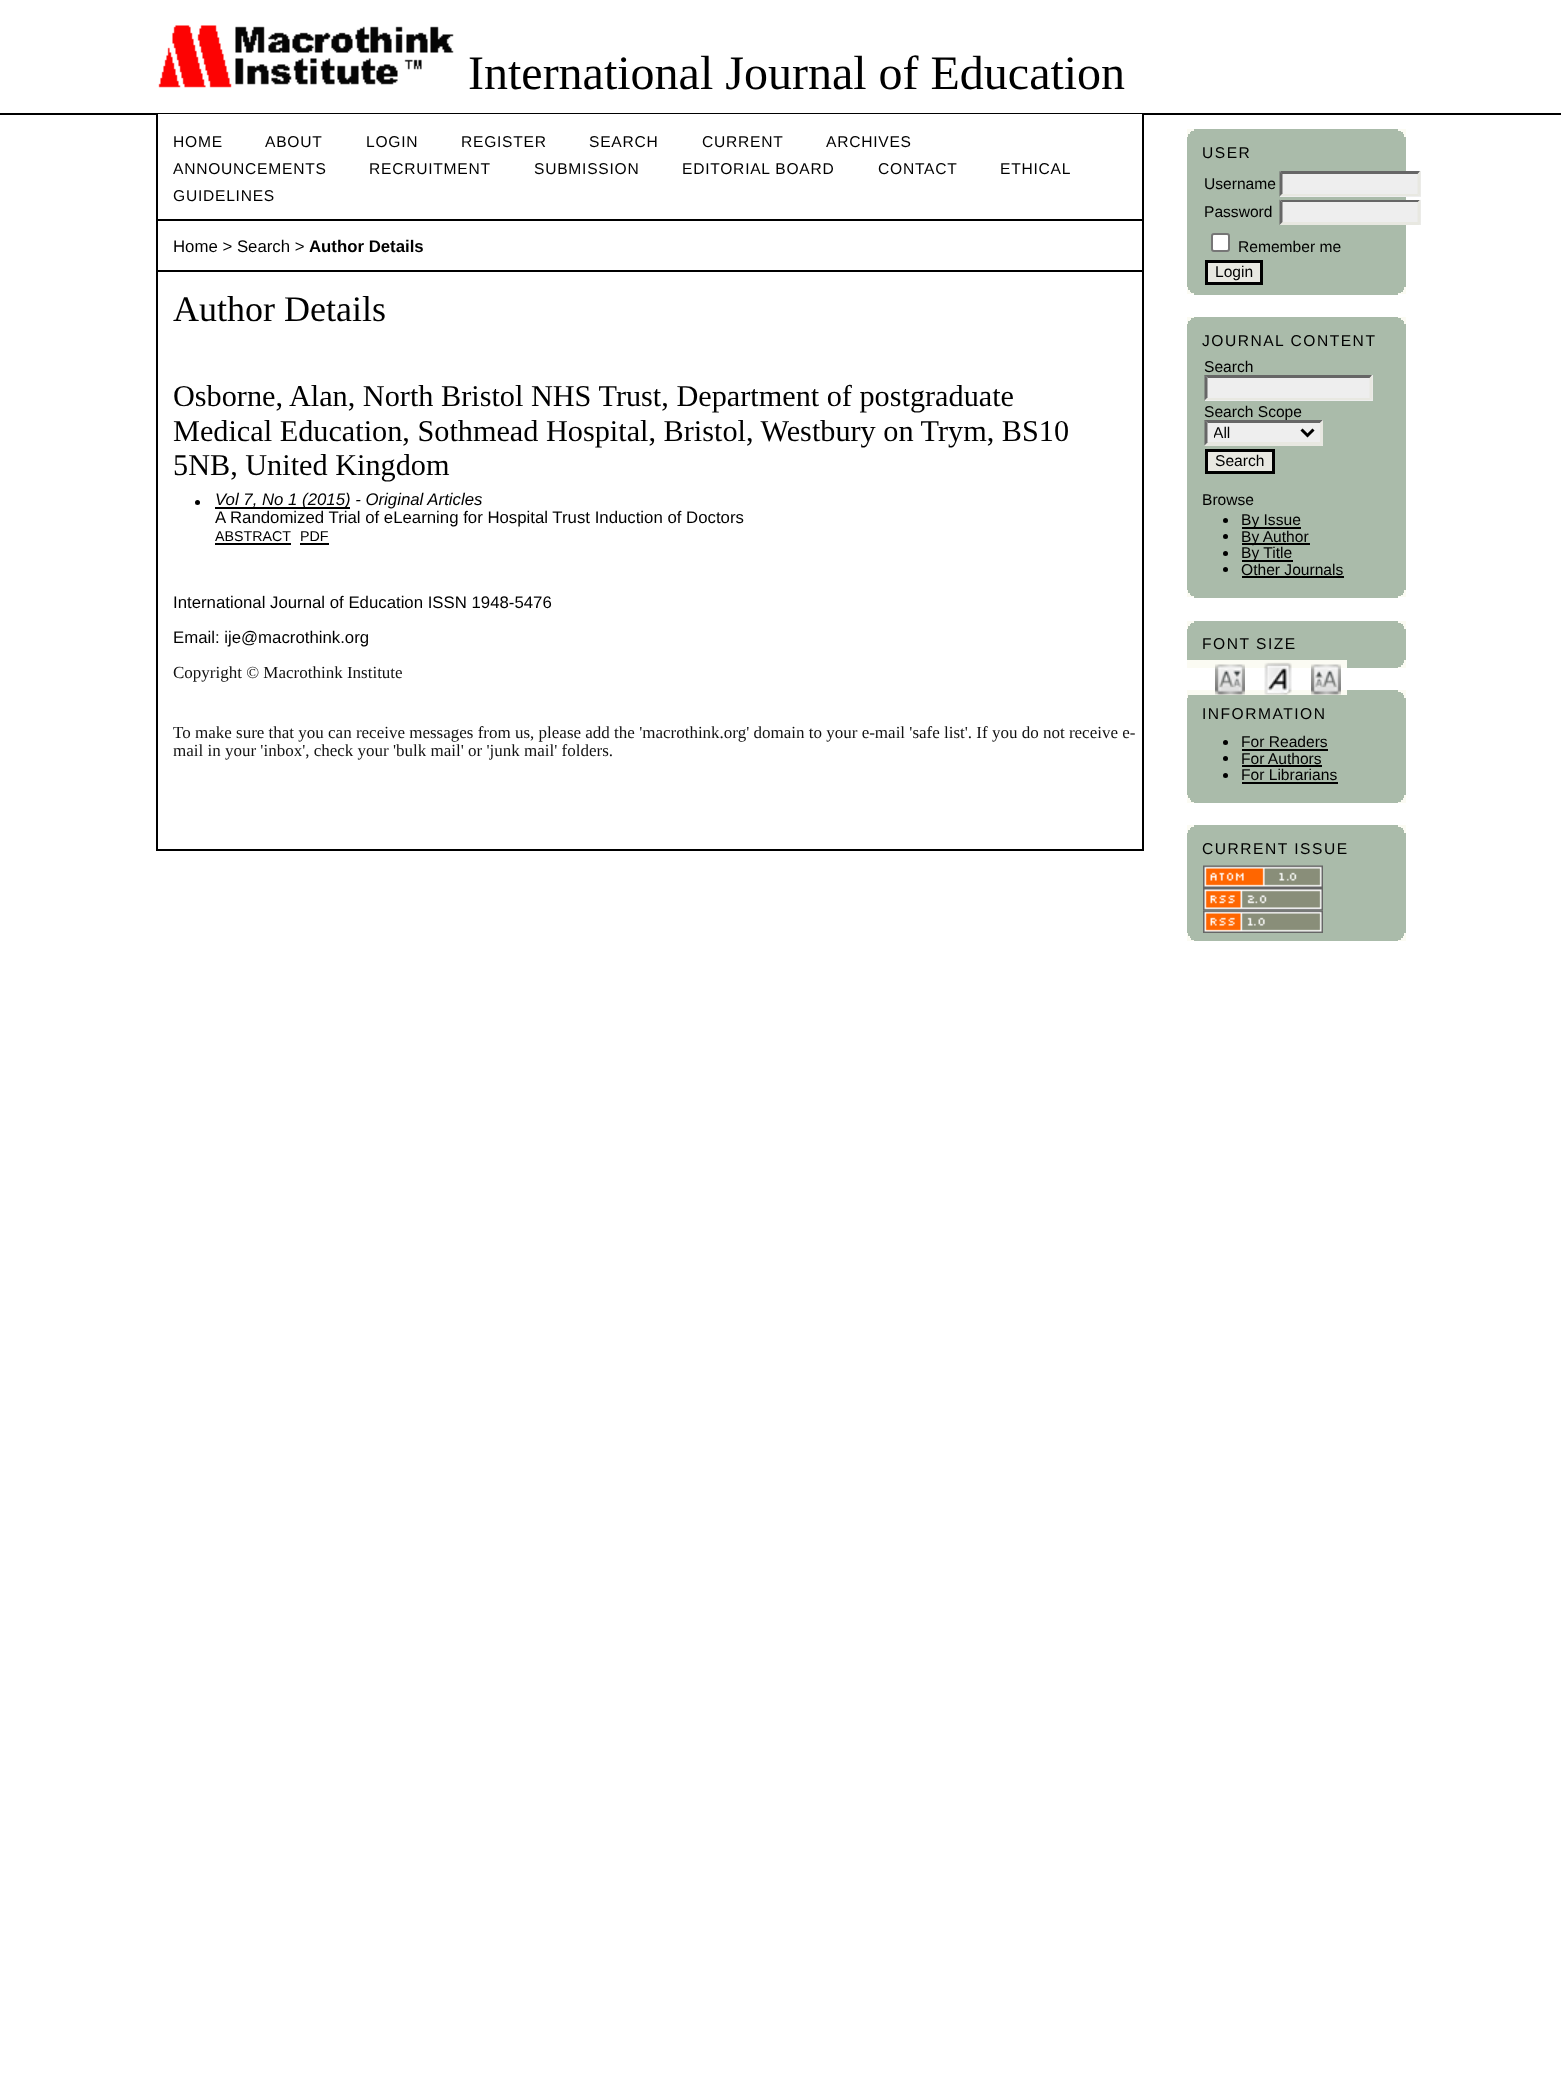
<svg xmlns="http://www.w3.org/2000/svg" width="1561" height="2087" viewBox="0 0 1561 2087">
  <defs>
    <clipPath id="clip1"><rect x="1214" y="423" width="82" height="20"/></clipPath>
  </defs>
  <rect width="100%" height="100%" fill="#ffffff"/>
  <rect x="0" y="113" width="1561" height="2" fill="#000000"/>
  <image x="158" y="25" width="296" height="63" href="img1.png"/>
  <text x="468" y="89" font-family="Liberation Serif" font-size="48" fill="#000000">International Journal of Education</text>
  <rect x="158" y="114" width="984" height="1" fill="#ffffff"/>
  <rect x="1142" y="114" width="2" height="737" fill="#000000"/>
  <rect x="156" y="849" width="987" height="2" fill="#000000"/>
  <rect x="156" y="114" width="2" height="737" fill="#000000"/>
  <rect x="158" y="219" width="984" height="2" fill="#000000"/>
  <text x="173" y="147" font-family="Liberation Sans" font-size="15.6" letter-spacing="0.75" fill="#000000">HOME</text>
  <text x="265" y="147" font-family="Liberation Sans" font-size="15.6" letter-spacing="0.75" fill="#000000">ABOUT</text>
  <text x="366" y="147" font-family="Liberation Sans" font-size="15.6" letter-spacing="0.75" fill="#000000">LOGIN</text>
  <text x="461" y="147" font-family="Liberation Sans" font-size="15.6" letter-spacing="0.75" fill="#000000">REGISTER</text>
  <text x="589" y="147" font-family="Liberation Sans" font-size="15.6" letter-spacing="0.75" fill="#000000">SEARCH</text>
  <text x="702" y="147" font-family="Liberation Sans" font-size="15.6" letter-spacing="0.75" fill="#000000">CURRENT</text>
  <text x="826" y="147" font-family="Liberation Sans" font-size="15.6" letter-spacing="0.75" fill="#000000">ARCHIVES</text>
  <text x="173" y="174" font-family="Liberation Sans" font-size="15.6" letter-spacing="0.75" fill="#000000">ANNOUNCEMENTS</text>
  <text x="369" y="174" font-family="Liberation Sans" font-size="15.6" letter-spacing="0.75" fill="#000000">RECRUITMENT</text>
  <text x="534" y="174" font-family="Liberation Sans" font-size="15.6" letter-spacing="0.75" fill="#000000">SUBMISSION</text>
  <text x="682" y="174" font-family="Liberation Sans" font-size="15.6" letter-spacing="0.75" fill="#000000">EDITORIAL BOARD</text>
  <text x="878" y="174" font-family="Liberation Sans" font-size="15.6" letter-spacing="0.75" fill="#000000">CONTACT</text>
  <text x="1000" y="174" font-family="Liberation Sans" font-size="15.6" letter-spacing="0.75" fill="#000000">ETHICAL</text>
  <text x="173" y="201" font-family="Liberation Sans" font-size="15.6" letter-spacing="0.75" fill="#000000">GUIDELINES</text>
  <rect x="158" y="270" width="984" height="2" fill="#000000"/>
  <text x="173" y="252" font-family="Liberation Sans" font-size="16.8" fill="#000000">Home &gt; Search &gt;</text>
  <text x="309" y="252" font-family="Liberation Sans" font-size="16.8" font-weight="bold" fill="#000000">Author Details</text>
  <text x="173" y="321" font-family="Liberation Serif" font-size="36" fill="#000000">Author Details</text>
  <text x="173" y="406" font-family="Liberation Serif" font-size="30.25" fill="#000000">Osborne, Alan, North Bristol NHS Trust, Department of postgraduate</text>
  <text x="173" y="441" font-family="Liberation Serif" font-size="30.25" fill="#000000">Medical Education, Sothmead Hospital, Bristol, Westbury on Trym, BS10</text>
  <text x="173" y="475" font-family="Liberation Serif" font-size="30.25" fill="#000000">5NB, United Kingdom</text>
  <circle cx="197.5" cy="502.5" r="2.5" fill="#000000"/>
  <rect x="215" y="507" width="135" height="2" fill="#000000"/>
  <text x="215" y="505" font-family="Liberation Sans" font-size="16.8" font-style="italic" fill="#000000">Vol 7, No 1 (2015) - Original Articles</text>
  <text x="215" y="523" font-family="Liberation Sans" font-size="16.8" fill="#000000">A Randomized Trial of eLearning for Hospital Trust Induction of Doctors</text>
  <text x="215" y="541" font-family="Liberation Sans" font-size="14.25" fill="#000000">ABSTRACT</text>
  <rect x="215" y="543" width="76" height="2" fill="#000000"/>
  <text x="300" y="541" font-family="Liberation Sans" font-size="14.25" fill="#000000">PDF</text>
  <rect x="300" y="543" width="29" height="2" fill="#000000"/>
  <text x="173" y="608" font-family="Liberation Sans" font-size="16.8" fill="#000000">International Journal of Education ISSN 1948-5476</text>
  <text x="173" y="643" font-family="Liberation Sans" font-size="16.8" fill="#000000">Email: ije@macrothink.org</text>
  <text x="173" y="678" font-family="Liberation Serif" font-size="17" fill="#111111">Copyright © Macrothink Institute</text>
  <text x="173" y="738" font-family="Liberation Serif" font-size="17" fill="#111111">To make sure that you can receive messages from us, please add the 'macrothink.org' domain to your e-mail 'safe list'. If you do not receive e-</text>
  <text x="173" y="756" font-family="Liberation Serif" font-size="17" fill="#111111">mail in your 'inbox', check your 'bulk mail' or 'junk mail' folders.</text>
  <rect x="1187" y="137" width="219" height="150" fill="#aabbaa"/>
  <rect x="1187" y="129" width="219" height="8" fill="#fbfbf3"/>
  <rect x="1194" y="129" width="204" height="2" fill="#aabbaa"/>
  <rect x="1191" y="131" width="210" height="1" fill="#aabbaa"/>
  <rect x="1190" y="132" width="213" height="2" fill="#aabbaa"/>
  <rect x="1188" y="134" width="216" height="3" fill="#aabbaa"/>
  <text x="1202" y="158" font-family="Liberation Sans" font-size="15.6" letter-spacing="1.5" fill="#000000">USER</text>
  <text x="1204" y="189" font-family="Liberation Sans" font-size="15.6" fill="#000000">Username</text>
  <rect x="1280" y="171" width="141" height="26" fill="#eeeeee"/>
  <path d="M1280 171H1420L1418 174H1282Z" fill="#666666"/>
  <path d="M1420.5 171V196.5L1417.5 193.5V174Z" fill="#e8e8e1"/>
  <path d="M1420 196H1280L1282 194H1418Z" fill="#e8e8e1"/>
  <path d="M1279.5 196.5V171L1282.5 174V193.5Z" fill="#666666"/>
  <text x="1204" y="217" font-family="Liberation Sans" font-size="15.6" fill="#000000">Password</text>
  <rect x="1280" y="200" width="141" height="25" fill="#eeeeee"/>
  <path d="M1280 200H1420L1418 202H1282Z" fill="#666666"/>
  <path d="M1420.5 199.5V225L1417.5 222V202.5Z" fill="#e8e8e1"/>
  <path d="M1420 225H1280L1282 222H1418Z" fill="#e8e8e1"/>
  <path d="M1279.5 225V199.5L1282.5 202.5V222Z" fill="#666666"/>
  <rect x="1212" y="234" width="17" height="17" rx="2" fill="#ffffff" stroke="#767676" stroke-width="2"/>
  <text x="1238" y="252" font-family="Liberation Sans" font-size="15.6" fill="#000000">Remember me</text>
  <rect x="1206.5" y="261.5" width="55" height="22" fill="#e8e8e1" stroke="#000000" stroke-width="3"/>
  <text x="1215" y="277" font-family="Liberation Sans" font-size="15.6" fill="#000000">Login</text>
  <rect x="1187" y="287" width="219" height="7" fill="#fbfbf3"/>
  <rect x="1188" y="287" width="216" height="3" fill="#aabbaa"/>
  <rect x="1190" y="290" width="213" height="2" fill="#aabbaa"/>
  <rect x="1191" y="292" width="210" height="1" fill="#aabbaa"/>
  <rect x="1194" y="293" width="204" height="2" fill="#aabbaa"/>
  <rect x="1187" y="324" width="219" height="266" fill="#aabbaa"/>
  <rect x="1187" y="317" width="219" height="7" fill="#fbfbf3"/>
  <rect x="1194" y="317" width="204" height="1" fill="#aabbaa"/>
  <rect x="1191" y="318" width="210" height="2" fill="#aabbaa"/>
  <rect x="1190" y="320" width="213" height="1" fill="#aabbaa"/>
  <rect x="1188" y="321" width="216" height="3" fill="#aabbaa"/>
  <text x="1202" y="346" font-family="Liberation Sans" font-size="15.6" letter-spacing="1.5" fill="#000000">JOURNAL CONTENT</text>
  <text x="1204" y="372" font-family="Liberation Sans" font-size="15.6" fill="#000000">Search</text>
  <rect x="1205" y="375" width="168" height="26" fill="#eeeeee"/>
  <path d="M1204 375H1372L1370 378H1208Z" fill="#666666"/>
  <path d="M1372.5 375V400.5L1369.5 397.5V378Z" fill="#e8e8e1"/>
  <path d="M1372 400H1204L1208 398H1370Z" fill="#e8e8e1"/>
  <path d="M1204.5 400.5V375L1207.5 378V397.5Z" fill="#666666"/>
  <text x="1204" y="417" font-family="Liberation Sans" font-size="15.6" fill="#000000">Search Scope</text>
  <rect x="1205" y="420" width="118" height="26" fill="#eeeeee"/>
  <path d="M1204 420H1323L1320 423H1208Z" fill="#666666"/>
  <path d="M1323 420V445.5L1320 442.5V423Z" fill="#e8e8e1"/>
  <path d="M1323 446H1204L1208 442H1320Z" fill="#e8e8e1"/>
  <path d="M1204.5 445.5V420L1207.5 423V442.5Z" fill="#666666"/>
  <path d="M1301.5 429.5L1307.5 435.5L1313.5 429.5" fill="none" stroke="#000000" stroke-width="3"/>
  <g clip-path="url(#clip1)">
    <text x="1213" y="438" font-family="Liberation Sans" font-size="15.6" fill="#000000">All</text>
  </g>
  <rect x="1206.5" y="450.5" width="67" height="22" fill="#e8e8e1" stroke="#000000" stroke-width="3"/>
  <text x="1215" y="466" font-family="Liberation Sans" font-size="15.6" fill="#000000">Search</text>
  <text x="1202" y="505" font-family="Liberation Sans" font-size="15.6" fill="#000000">Browse</text>
  <circle cx="1225.5" cy="520.5" r="2.5" fill="#000000"/>
  <rect x="1242" y="527" width="59" height="2" fill="#000000"/>
  <text x="1241" y="525" font-family="Liberation Sans" font-size="15.6" fill="#000000">By Issue</text>
  <circle cx="1225.5" cy="536.5" r="2.5" fill="#000000"/>
  <rect x="1242" y="543" width="68" height="2" fill="#000000"/>
  <text x="1241" y="542" font-family="Liberation Sans" font-size="15.6" fill="#000000">By Author</text>
  <circle cx="1225.5" cy="553.5" r="2.5" fill="#000000"/>
  <rect x="1242" y="560" width="51" height="2" fill="#000000"/>
  <text x="1241" y="558" font-family="Liberation Sans" font-size="15.6" fill="#000000">By Title</text>
  <circle cx="1225.5" cy="569.5" r="2.5" fill="#000000"/>
  <text x="1241" y="575" font-family="Liberation Sans" font-size="15.6" fill="#000000">Other Journals</text>
  <rect x="1242" y="576" width="102" height="2" fill="#000000"/>
  <rect x="1187" y="590" width="219" height="7" fill="#fbfbf3"/>
  <rect x="1188" y="590" width="216" height="3" fill="#aabbaa"/>
  <rect x="1190" y="593" width="213" height="2" fill="#aabbaa"/>
  <rect x="1191" y="595" width="210" height="1" fill="#aabbaa"/>
  <rect x="1194" y="596" width="204" height="2" fill="#aabbaa"/>
  <rect x="1187" y="629" width="219" height="31" fill="#aabbaa"/>
  <rect x="1187" y="621" width="219" height="8" fill="#fbfbf3"/>
  <rect x="1194" y="621" width="204" height="2" fill="#aabbaa"/>
  <rect x="1191" y="623" width="210" height="1" fill="#aabbaa"/>
  <rect x="1190" y="624" width="213" height="2" fill="#aabbaa"/>
  <rect x="1188" y="626" width="216" height="3" fill="#aabbaa"/>
  <text x="1202" y="649" font-family="Liberation Sans" font-size="15.6" letter-spacing="1.5" fill="#000000">FONT SIZE</text>
  <rect x="1187" y="660" width="219" height="8" fill="#fbfbf3"/>
  <rect x="1187" y="690" width="219" height="8" fill="#fbfbf3"/>
  <image x="1215" y="664" width="30" height="31" href="img2.png"/>
  <image x="1264" y="662" width="28" height="33" href="img3.png"/>
  <image x="1311" y="664" width="30" height="31" href="img4.png"/>
  <rect x="1347" y="660" width="57" height="3" fill="#aabbaa"/>
  <rect x="1347" y="663" width="56" height="2" fill="#aabbaa"/>
  <rect x="1347" y="665" width="54" height="2" fill="#aabbaa"/>
  <rect x="1347" y="667" width="51" height="1" fill="#aabbaa"/>
  <rect x="1187" y="698" width="219" height="97" fill="#aabbaa"/>
  <rect x="1347" y="690" width="51" height="2" fill="#aabbaa"/>
  <rect x="1347" y="692" width="54" height="1" fill="#aabbaa"/>
  <rect x="1347" y="693" width="56" height="2" fill="#aabbaa"/>
  <rect x="1188" y="695" width="216" height="3" fill="#aabbaa"/>
  <text x="1202" y="719" font-family="Liberation Sans" font-size="15.6" letter-spacing="1.5" fill="#000000">INFORMATION</text>
  <circle cx="1225.5" cy="742.5" r="2.5" fill="#000000"/>
  <text x="1241" y="747" font-family="Liberation Sans" font-size="15.6" fill="#000000">For Readers</text>
  <rect x="1242" y="749" width="86" height="2" fill="#000000"/>
  <circle cx="1225.5" cy="758.5" r="2.5" fill="#000000"/>
  <text x="1241" y="764" font-family="Liberation Sans" font-size="15.6" fill="#000000">For Authors</text>
  <rect x="1242" y="765" width="80" height="2" fill="#000000"/>
  <circle cx="1225.5" cy="775.5" r="2.5" fill="#000000"/>
  <text x="1241" y="780" font-family="Liberation Sans" font-size="15.6" fill="#000000">For Librarians</text>
  <rect x="1242" y="782" width="96" height="2" fill="#000000"/>
  <rect x="1187" y="795" width="219" height="8" fill="#fbfbf3"/>
  <rect x="1188" y="795" width="216" height="3" fill="#aabbaa"/>
  <rect x="1190" y="798" width="213" height="2" fill="#aabbaa"/>
  <rect x="1191" y="800" width="210" height="2" fill="#aabbaa"/>
  <rect x="1194" y="802" width="204" height="1" fill="#aabbaa"/>
  <rect x="1187" y="833" width="219" height="100" fill="#aabbaa"/>
  <rect x="1187" y="825" width="219" height="8" fill="#fbfbf3"/>
  <rect x="1194" y="825" width="204" height="2" fill="#aabbaa"/>
  <rect x="1191" y="827" width="210" height="1" fill="#aabbaa"/>
  <rect x="1190" y="828" width="213" height="2" fill="#aabbaa"/>
  <rect x="1188" y="830" width="216" height="3" fill="#aabbaa"/>
  <text x="1202" y="854" font-family="Liberation Sans" font-size="15.6" letter-spacing="1.5" fill="#000000">CURRENT ISSUE</text>
  <image x="1203" y="865" width="120" height="23" href="img5.png"/>
  <image x="1203" y="888" width="120" height="23" href="img6.png"/>
  <image x="1203" y="910" width="120" height="23" href="img7.png"/>
  <rect x="1187" y="933" width="219" height="8" fill="#fbfbf3"/>
  <rect x="1188" y="933" width="216" height="3" fill="#aabbaa"/>
  <rect x="1190" y="936" width="213" height="2" fill="#aabbaa"/>
  <rect x="1191" y="938" width="210" height="2" fill="#aabbaa"/>
  <rect x="1194" y="940" width="204" height="1" fill="#aabbaa"/>
</svg>
